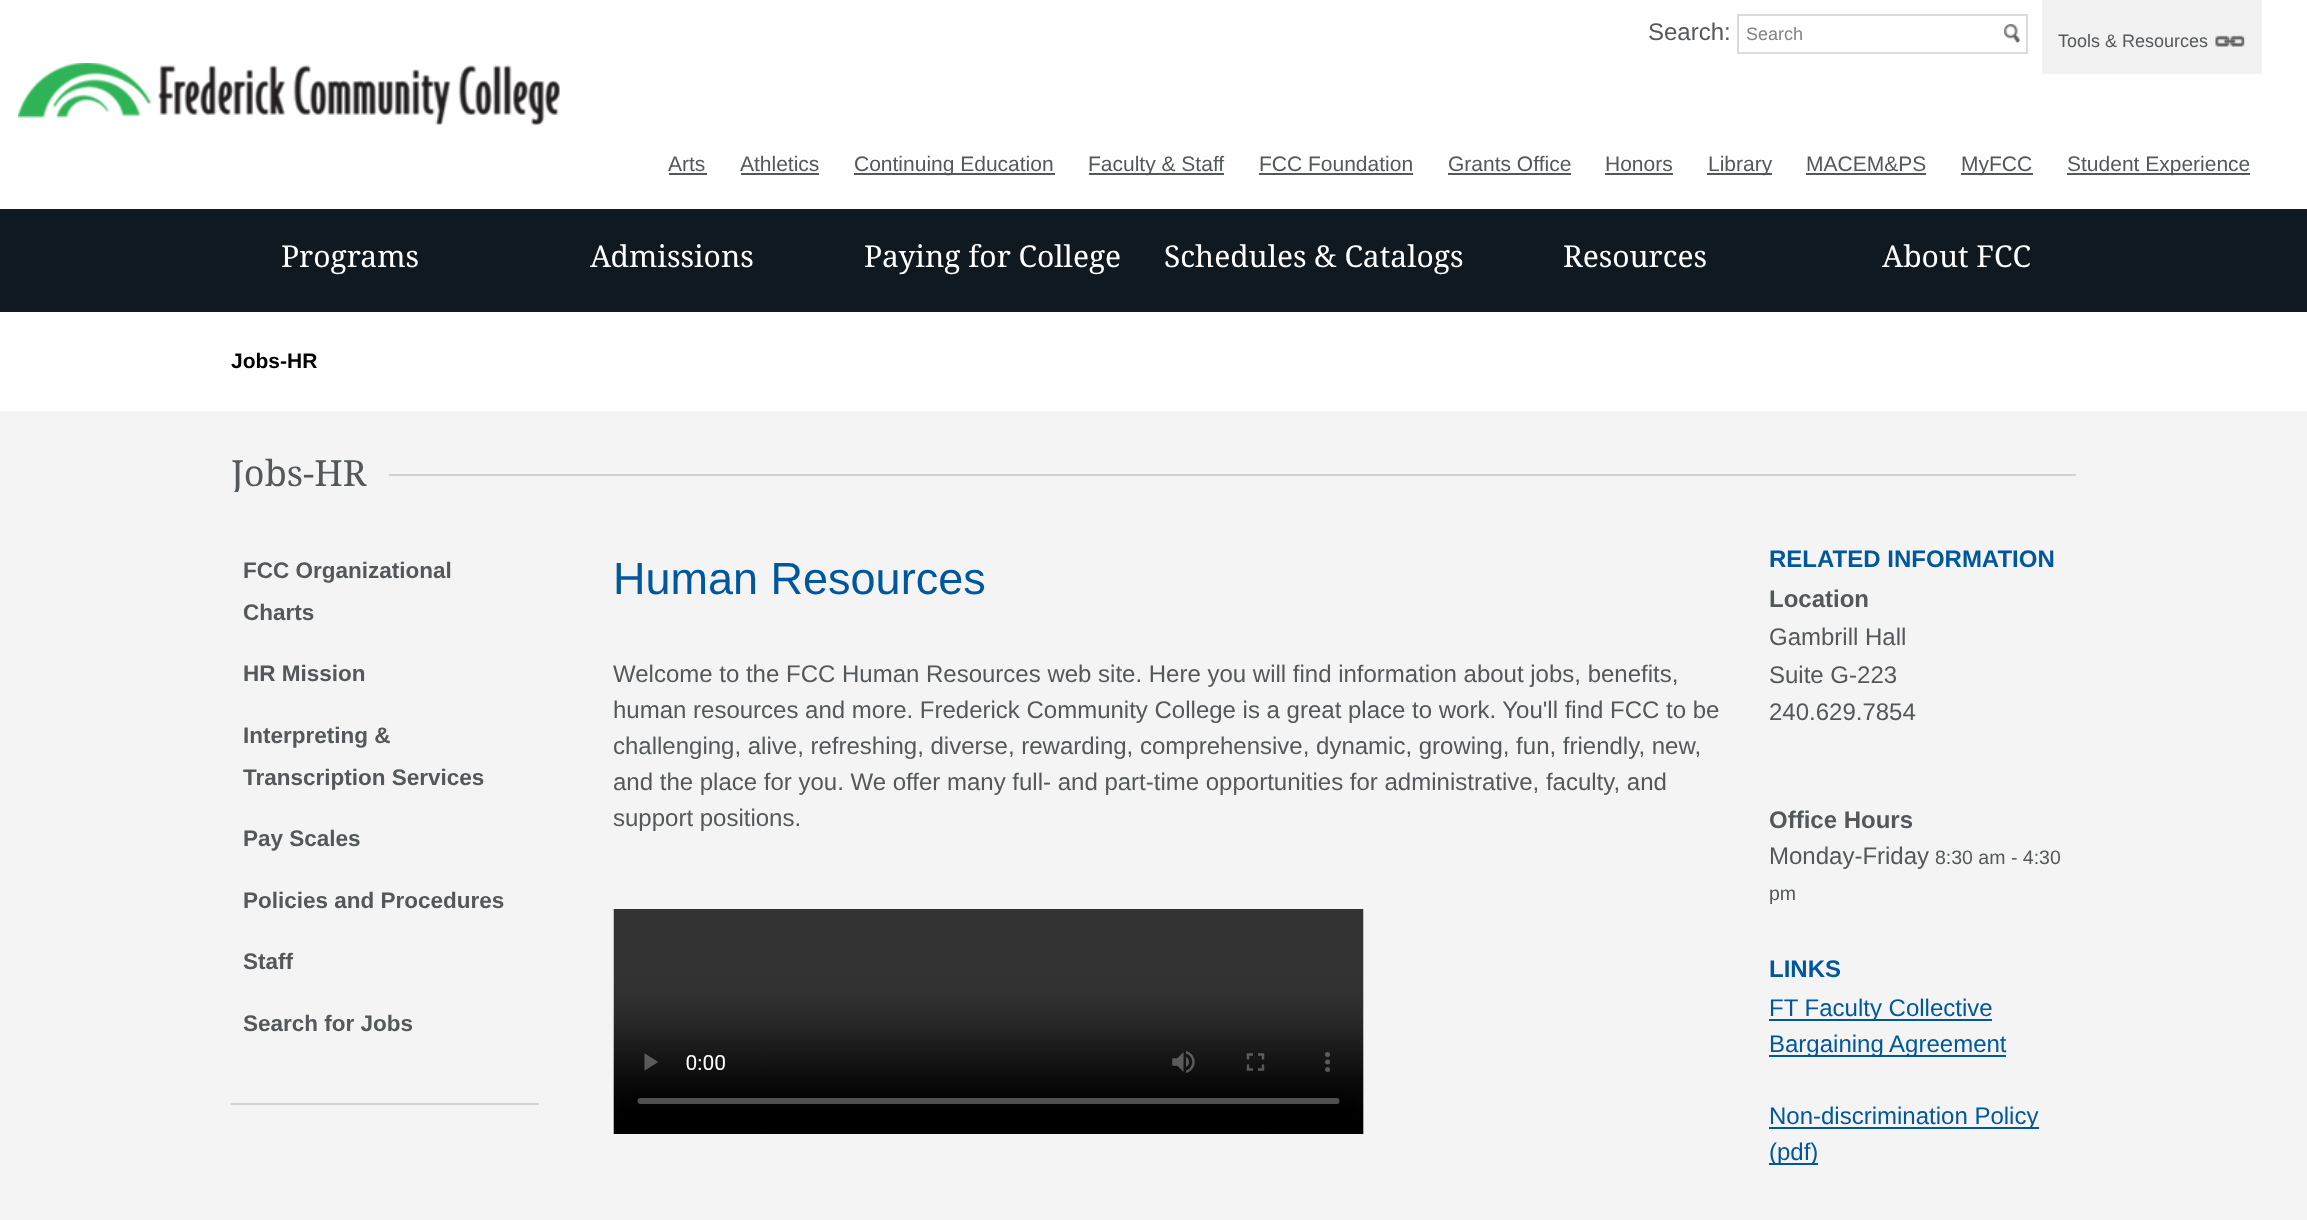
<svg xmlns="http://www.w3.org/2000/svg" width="2307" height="1220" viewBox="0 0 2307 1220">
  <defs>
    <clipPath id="clip1"><rect x="231" y="456" width="1845" height="36"/></clipPath>
  </defs>
  <rect width="100%" height="100%" fill="#ffffff"/>
  <text x="1648" y="40" font-family="Liberation Sans" font-size="24" fill="#54585a">Search:</text>
  <rect x="1738" y="15" width="289" height="38" fill="none" stroke="#dbdbdb" stroke-width="2"/>
  <text x="1746" y="40" font-family="Liberation Sans" font-size="18" fill="#838383">Search</text>
  <image x="2004" y="24" width="16" height="19" href="img1.png"/>
  <rect x="2042" y="0" width="220" height="74" fill="#f2f2f2"/>
  <text x="2058" y="47" font-family="Liberation Sans" font-size="18" fill="#54585a">Tools &amp; Resources</text>
  <image x="2215" y="35" width="30" height="12" href="img2.png"/>
  <image x="18" y="63" width="542" height="62" href="img3.png"/>
  <text x="668" y="171" font-family="Liberation Sans" font-size="21" fill="#54585a">Arts</text>
  <rect x="669" y="173" width="38" height="2" fill="#54585a"/>
  <text x="740" y="171" font-family="Liberation Sans" font-size="21" fill="#54585a">Athletics</text>
  <rect x="741" y="173" width="78" height="2" fill="#54585a"/>
  <rect x="854" y="173" width="201" height="2" fill="#54585a"/>
  <text x="854" y="171" font-family="Liberation Sans" font-size="21" fill="#54585a">Continuing Education</text>
  <rect x="1089" y="173" width="135" height="2" fill="#54585a"/>
  <text x="1088" y="171" font-family="Liberation Sans" font-size="21" fill="#54585a">Faculty &amp; Staff</text>
  <text x="1259" y="171" font-family="Liberation Sans" font-size="21" fill="#54585a">FCC Foundation</text>
  <rect x="1259" y="173" width="154" height="2" fill="#54585a"/>
  <text x="1448" y="171" font-family="Liberation Sans" font-size="21" fill="#54585a">Grants Office</text>
  <rect x="1448" y="173" width="123" height="2" fill="#54585a"/>
  <text x="1605" y="171" font-family="Liberation Sans" font-size="21" fill="#54585a">Honors</text>
  <rect x="1605" y="173" width="68" height="2" fill="#54585a"/>
  <rect x="1707" y="173" width="65" height="2" fill="#54585a"/>
  <text x="1708" y="171" font-family="Liberation Sans" font-size="21" fill="#54585a">Library</text>
  <text x="1806" y="171" font-family="Liberation Sans" font-size="21" fill="#54585a">MACEM&amp;PS</text>
  <rect x="1806" y="173" width="120" height="2" fill="#54585a"/>
  <rect x="1961" y="173" width="72" height="2" fill="#54585a"/>
  <text x="1961" y="171" font-family="Liberation Sans" font-size="21" fill="#54585a">MyFCC</text>
  <rect x="2067" y="173" width="183" height="2" fill="#54585a"/>
  <text x="2067" y="171" font-family="Liberation Sans" font-size="21" fill="#54585a">Student Experience</text>
  <rect x="0" y="209" width="2307" height="103" fill="#101820"/>
  <text x="281" y="267" font-family="Droid Serif" font-size="30" fill="#ffffff">Programs</text>
  <text x="590" y="267" font-family="Droid Serif" font-size="30" fill="#ffffff">Admissions</text>
  <text x="864" y="267" font-family="Droid Serif" font-size="30" fill="#ffffff">Paying for College</text>
  <text x="1164" y="267" font-family="Droid Serif" font-size="30" fill="#ffffff">Schedules &amp; Catalogs</text>
  <text x="1563" y="267" font-family="Droid Serif" font-size="30" fill="#ffffff">Resources</text>
  <text x="1882" y="267" font-family="Droid Serif" font-size="30" fill="#ffffff">About FCC</text>
  <text x="231" y="368" font-family="Liberation Sans" font-size="21" font-weight="bold" fill="#000000">Jobs-HR</text>
  <rect x="0" y="411" width="2307" height="809" fill="#f3f4f3"/>
  <g clip-path="url(#clip1)">
    <text x="231" y="486" font-family="Droid Serif" font-size="36" fill="#54585a">Jobs-HR</text>
  </g>
  <rect x="389" y="474" width="1687" height="2" fill="#d1d1d1"/>
  <rect x="231" y="1103" width="308" height="2" fill="#d3d3d3"/>
  <text x="243" y="578" font-family="Liberation Sans" font-size="22.5" font-weight="bold" fill="#54585a">FCC Organizational</text>
  <text x="243" y="620" font-family="Liberation Sans" font-size="22.5" font-weight="bold" fill="#54585a">Charts</text>
  <text x="243" y="681" font-family="Liberation Sans" font-size="22.5" font-weight="bold" fill="#54585a">HR Mission</text>
  <text x="243" y="743" font-family="Liberation Sans" font-size="22.5" font-weight="bold" fill="#54585a">Interpreting &amp;</text>
  <text x="243" y="785" font-family="Liberation Sans" font-size="22.5" font-weight="bold" fill="#54585a">Transcription Services</text>
  <text x="243" y="846" font-family="Liberation Sans" font-size="22.5" font-weight="bold" fill="#54585a">Pay Scales</text>
  <text x="243" y="908" font-family="Liberation Sans" font-size="22.5" font-weight="bold" fill="#54585a">Policies and Procedures</text>
  <text x="243" y="969" font-family="Liberation Sans" font-size="22.5" font-weight="bold" fill="#54585a">Staff</text>
  <text x="243" y="1031" font-family="Liberation Sans" font-size="22.5" font-weight="bold" fill="#54585a">Search for Jobs</text>
  <text x="613" y="594" font-family="Liberation Sans" font-size="45" fill="#01579c">Human Resources</text>
  <text x="613" y="682" font-family="Liberation Sans" font-size="24" fill="#54585a">Welcome to the FCC Human Resources web site. Here you will find information about jobs, benefits,</text>
  <text x="613" y="718" font-family="Liberation Sans" font-size="24" fill="#54585a">human resources and more. Frederick Community College is a great place to work. You'll find FCC to be</text>
  <text x="613" y="754" font-family="Liberation Sans" font-size="24" fill="#54585a">challenging, alive, refreshing, diverse, rewarding, comprehensive, dynamic, growing, fun, friendly, new,</text>
  <text x="613" y="790" font-family="Liberation Sans" font-size="24" fill="#54585a">and the place for you. We offer many full- and part-time opportunities for administrative, faculty, and</text>
  <text x="613" y="826" font-family="Liberation Sans" font-size="24" fill="#54585a">support positions.</text>
  <image x="613" y="909" width="751" height="225" href="img4.png"/>
  <text x="1769" y="567" font-family="Liberation Sans" font-size="24" font-weight="bold" fill="#01579c">RELATED INFORMATION</text>
  <text x="1769" y="607" font-family="Liberation Sans" font-size="24" font-weight="bold" fill="#54585a">Location</text>
  <text x="1769" y="645" font-family="Liberation Sans" font-size="24" fill="#54585a">Gambrill Hall</text>
  <text x="1769" y="683" font-family="Liberation Sans" font-size="24" fill="#54585a">Suite G-223</text>
  <text x="1769" y="720" font-family="Liberation Sans" font-size="24" fill="#54585a">240.629.7854</text>
  <text x="1769" y="828" font-family="Liberation Sans" font-size="24" font-weight="bold" fill="#54585a">Office Hours</text>
  <text x="1769" y="864" font-family="Liberation Sans" font-size="24" fill="#54585a">Monday-Friday</text>
  <text x="1935" y="864" font-family="Liberation Sans" font-size="19.5" fill="#54585a">8:30 am - 4:30</text>
  <text x="1769" y="900" font-family="Liberation Sans" font-size="19.5" fill="#54585a">pm</text>
  <text x="1769" y="977" font-family="Liberation Sans" font-size="24" font-weight="bold" fill="#01579c">LINKS</text>
  <rect x="1769" y="1019" width="223" height="2" fill="#00579e"/>
  <text x="1769" y="1016" font-family="Liberation Sans" font-size="24" fill="#01579c">FT Faculty Collective</text>
  <rect x="1769" y="1055" width="237" height="2" fill="#00579e"/>
  <text x="1769" y="1052" font-family="Liberation Sans" font-size="24" fill="#01579c">Bargaining Agreement</text>
  <rect x="1769" y="1127" width="270" height="2" fill="#00579e"/>
  <text x="1769" y="1124" font-family="Liberation Sans" font-size="24" fill="#01579c">Non-discrimination Policy</text>
  <rect x="1769" y="1163" width="49" height="2" fill="#00579e"/>
  <text x="1769" y="1160" font-family="Liberation Sans" font-size="24" fill="#01579c">(pdf)</text>
</svg>
